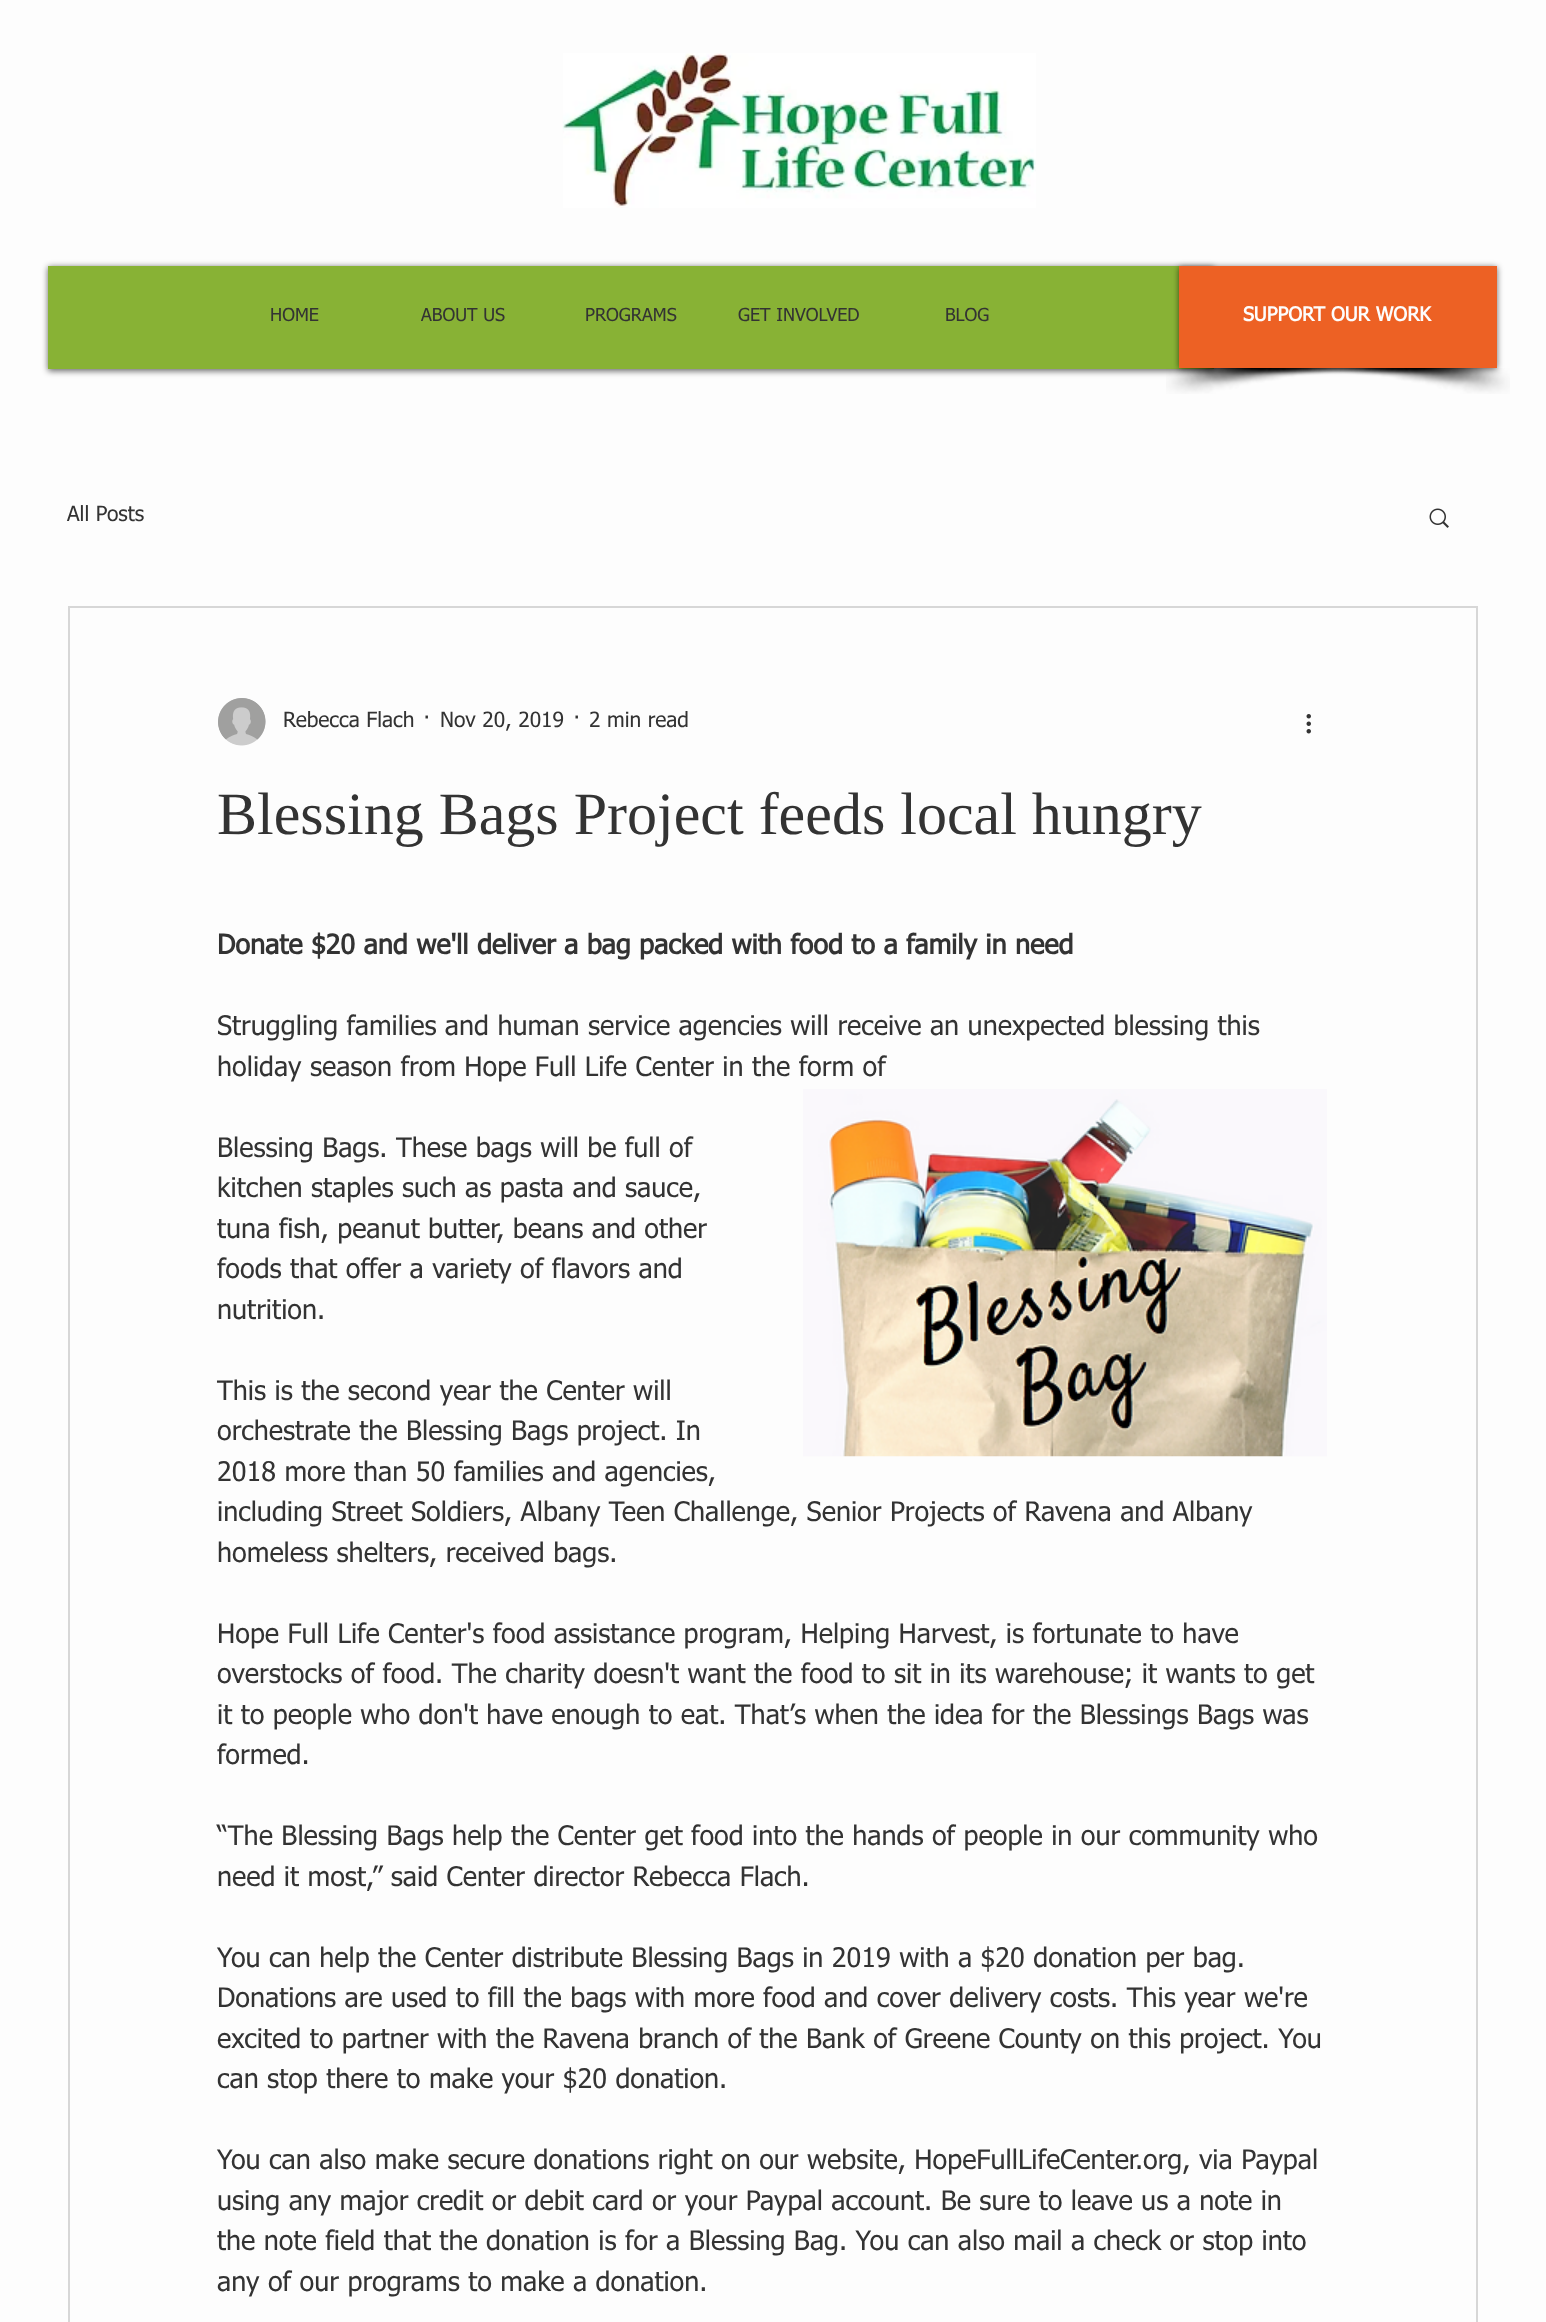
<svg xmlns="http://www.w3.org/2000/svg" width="1546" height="2322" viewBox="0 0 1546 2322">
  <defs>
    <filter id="blur1" x="-50%" y="-200%" width="200%" height="500%"><feGaussianBlur stdDeviation="3"/></filter>
  </defs>
  <rect width="100%" height="100%" fill="#fdfdfd"/>
  <image x="562" y="53" width="474" height="155" href="img1.png"/>
  <rect x="48" y="267" width="1166" height="104" fill="#000000" fill-opacity="0.6" filter="url(#blur1)"/>
  <rect x="48" y="266" width="1166" height="103" fill="#88b235"/>
  <text x="270" y="321" font-family="tahoma" font-size="18" fill="#333333">HOME</text>
  <text x="421" y="321" font-family="tahoma" font-size="18" fill="#333333">ABOUT US</text>
  <text x="585" y="321" font-family="tahoma" font-size="18" fill="#333333">PROGRAMS</text>
  <text x="738" y="321" font-family="tahoma" font-size="18" fill="#333333">GET INVOLVED</text>
  <text x="945" y="321" font-family="tahoma" font-size="18" fill="#333333">BLOG</text>
  <image x="1166" y="368" width="223" height="26" href="img2.png"/>
  <image x="1303" y="368" width="207" height="26" href="img3.png"/>
  <rect x="1179" y="267" width="318" height="102" fill="#000000" fill-opacity="0.6" filter="url(#blur1)"/>
  <rect x="1179" y="266" width="318" height="102" fill="#ed6124"/>
  <text x="1243" y="321" font-family="tahoma" font-size="19.5" font-weight="bold" fill="#fdfdfd">SUPPORT OUR WORK</text>
  <text x="67" y="521" font-family="tahoma" font-size="21" fill="#333333">All Posts</text>
  <image x="1429" y="508" width="20" height="20" href="img4.png"/>
  <rect x="69" y="607" width="1408" height="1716" fill="none" stroke="#d7d7d7" stroke-width="2"/>
  <image x="218" y="698" width="48" height="48" href="img5.png"/>
  <text x="283" y="727" font-family="tahoma" font-size="21" fill="#333333">Rebecca Flach</text>
  <text x="423" y="727" font-family="tahoma" font-size="21" fill="#333333">·</text>
  <text x="440" y="727" font-family="tahoma" font-size="21" fill="#333333">Nov 20, 2019</text>
  <text x="573" y="727" font-family="tahoma" font-size="21" fill="#333333">·</text>
  <text x="589" y="727" font-family="tahoma" font-size="21" fill="#333333">2 min read</text>
  <image x="1306" y="714" width="5" height="20" href="img6.png"/>
  <text x="217" y="834" font-family="Liberation Serif" font-size="60" fill="#333333">Blessing Bags Project feeds local hungry</text>
  <text x="217" y="954" font-family="tahoma" font-size="27" font-weight="bold" fill="#333333">Donate $20 and we'll deliver a bag packed with food to a family in need</text>
  <text x="217" y="1035" font-family="tahoma" font-size="27" fill="#333333">Struggling families and human service agencies will receive an unexpected blessing this</text>
  <text x="217" y="1076" font-family="tahoma" font-size="27" fill="#333333">holiday season from Hope Full Life Center in the form of</text>
  <text x="217" y="1157" font-family="tahoma" font-size="27" fill="#333333">Blessing Bags. These bags will be full of</text>
  <text x="217" y="1197" font-family="tahoma" font-size="27" fill="#333333">kitchen staples such as pasta and sauce,</text>
  <text x="217" y="1238" font-family="tahoma" font-size="27" fill="#333333">tuna fish, peanut butter, beans and other</text>
  <text x="217" y="1278" font-family="tahoma" font-size="27" fill="#333333">foods that offer a variety of flavors and</text>
  <text x="217" y="1319" font-family="tahoma" font-size="27" fill="#333333">nutrition.</text>
  <image x="803" y="1089" width="524" height="368" href="img7.png"/>
  <text x="217" y="1400" font-family="tahoma" font-size="27" fill="#333333">This is the second year the Center will</text>
  <text x="217" y="1440" font-family="tahoma" font-size="27" fill="#333333">orchestrate the Blessing Bags project. In</text>
  <text x="217" y="1481" font-family="tahoma" font-size="27" fill="#333333">2018 more than 50 families and agencies,</text>
  <text x="217" y="1521" font-family="tahoma" font-size="27" fill="#333333">including Street Soldiers, Albany Teen Challenge, Senior Projects of Ravena and Albany</text>
  <text x="217" y="1562" font-family="tahoma" font-size="27" fill="#333333">homeless shelters, received bags.</text>
  <text x="217" y="1643" font-family="tahoma" font-size="27" fill="#333333">Hope Full Life Center's food assistance program, Helping Harvest, is fortunate to have</text>
  <text x="217" y="1683" font-family="tahoma" font-size="27" fill="#333333">overstocks of food. The charity doesn't want the food to sit in its warehouse; it wants to get</text>
  <text x="217" y="1724" font-family="tahoma" font-size="27" fill="#333333">it to people who don't have enough to eat. That’s when the idea for the Blessings Bags was</text>
  <text x="217" y="1764" font-family="tahoma" font-size="27" fill="#333333">formed.</text>
  <text x="217" y="1845" font-family="tahoma" font-size="27" fill="#333333">“The Blessing Bags help the Center get food into the hands of people in our community who</text>
  <text x="217" y="1886" font-family="tahoma" font-size="27" fill="#333333">need it most,” said Center director Rebecca Flach.</text>
  <text x="217" y="1967" font-family="tahoma" font-size="27" fill="#333333">You can help the Center distribute Blessing Bags in 2019 with a $20 donation per bag.</text>
  <text x="217" y="2007" font-family="tahoma" font-size="27" fill="#333333">Donations are used to fill the bags with more food and cover delivery costs. This year we're</text>
  <text x="217" y="2048" font-family="tahoma" font-size="27" fill="#333333">excited to partner with the Ravena branch of the Bank of Greene County on this project. You</text>
  <text x="217" y="2088" font-family="tahoma" font-size="27" fill="#333333">can stop there to make your $20 donation.</text>
  <text x="217" y="2169" font-family="tahoma" font-size="27" fill="#333333">You can also make secure donations right on our website, HopeFullLifeCenter.org, via Paypal</text>
  <text x="217" y="2210" font-family="tahoma" font-size="27" fill="#333333">using any major credit or debit card or your Paypal account. Be sure to leave us a note in</text>
  <text x="217" y="2250" font-family="tahoma" font-size="27" fill="#333333">the note field that the donation is for a Blessing Bag. You can also mail a check or stop into</text>
  <text x="217" y="2291" font-family="tahoma" font-size="27" fill="#333333">any of our programs to make a donation.</text>
</svg>
